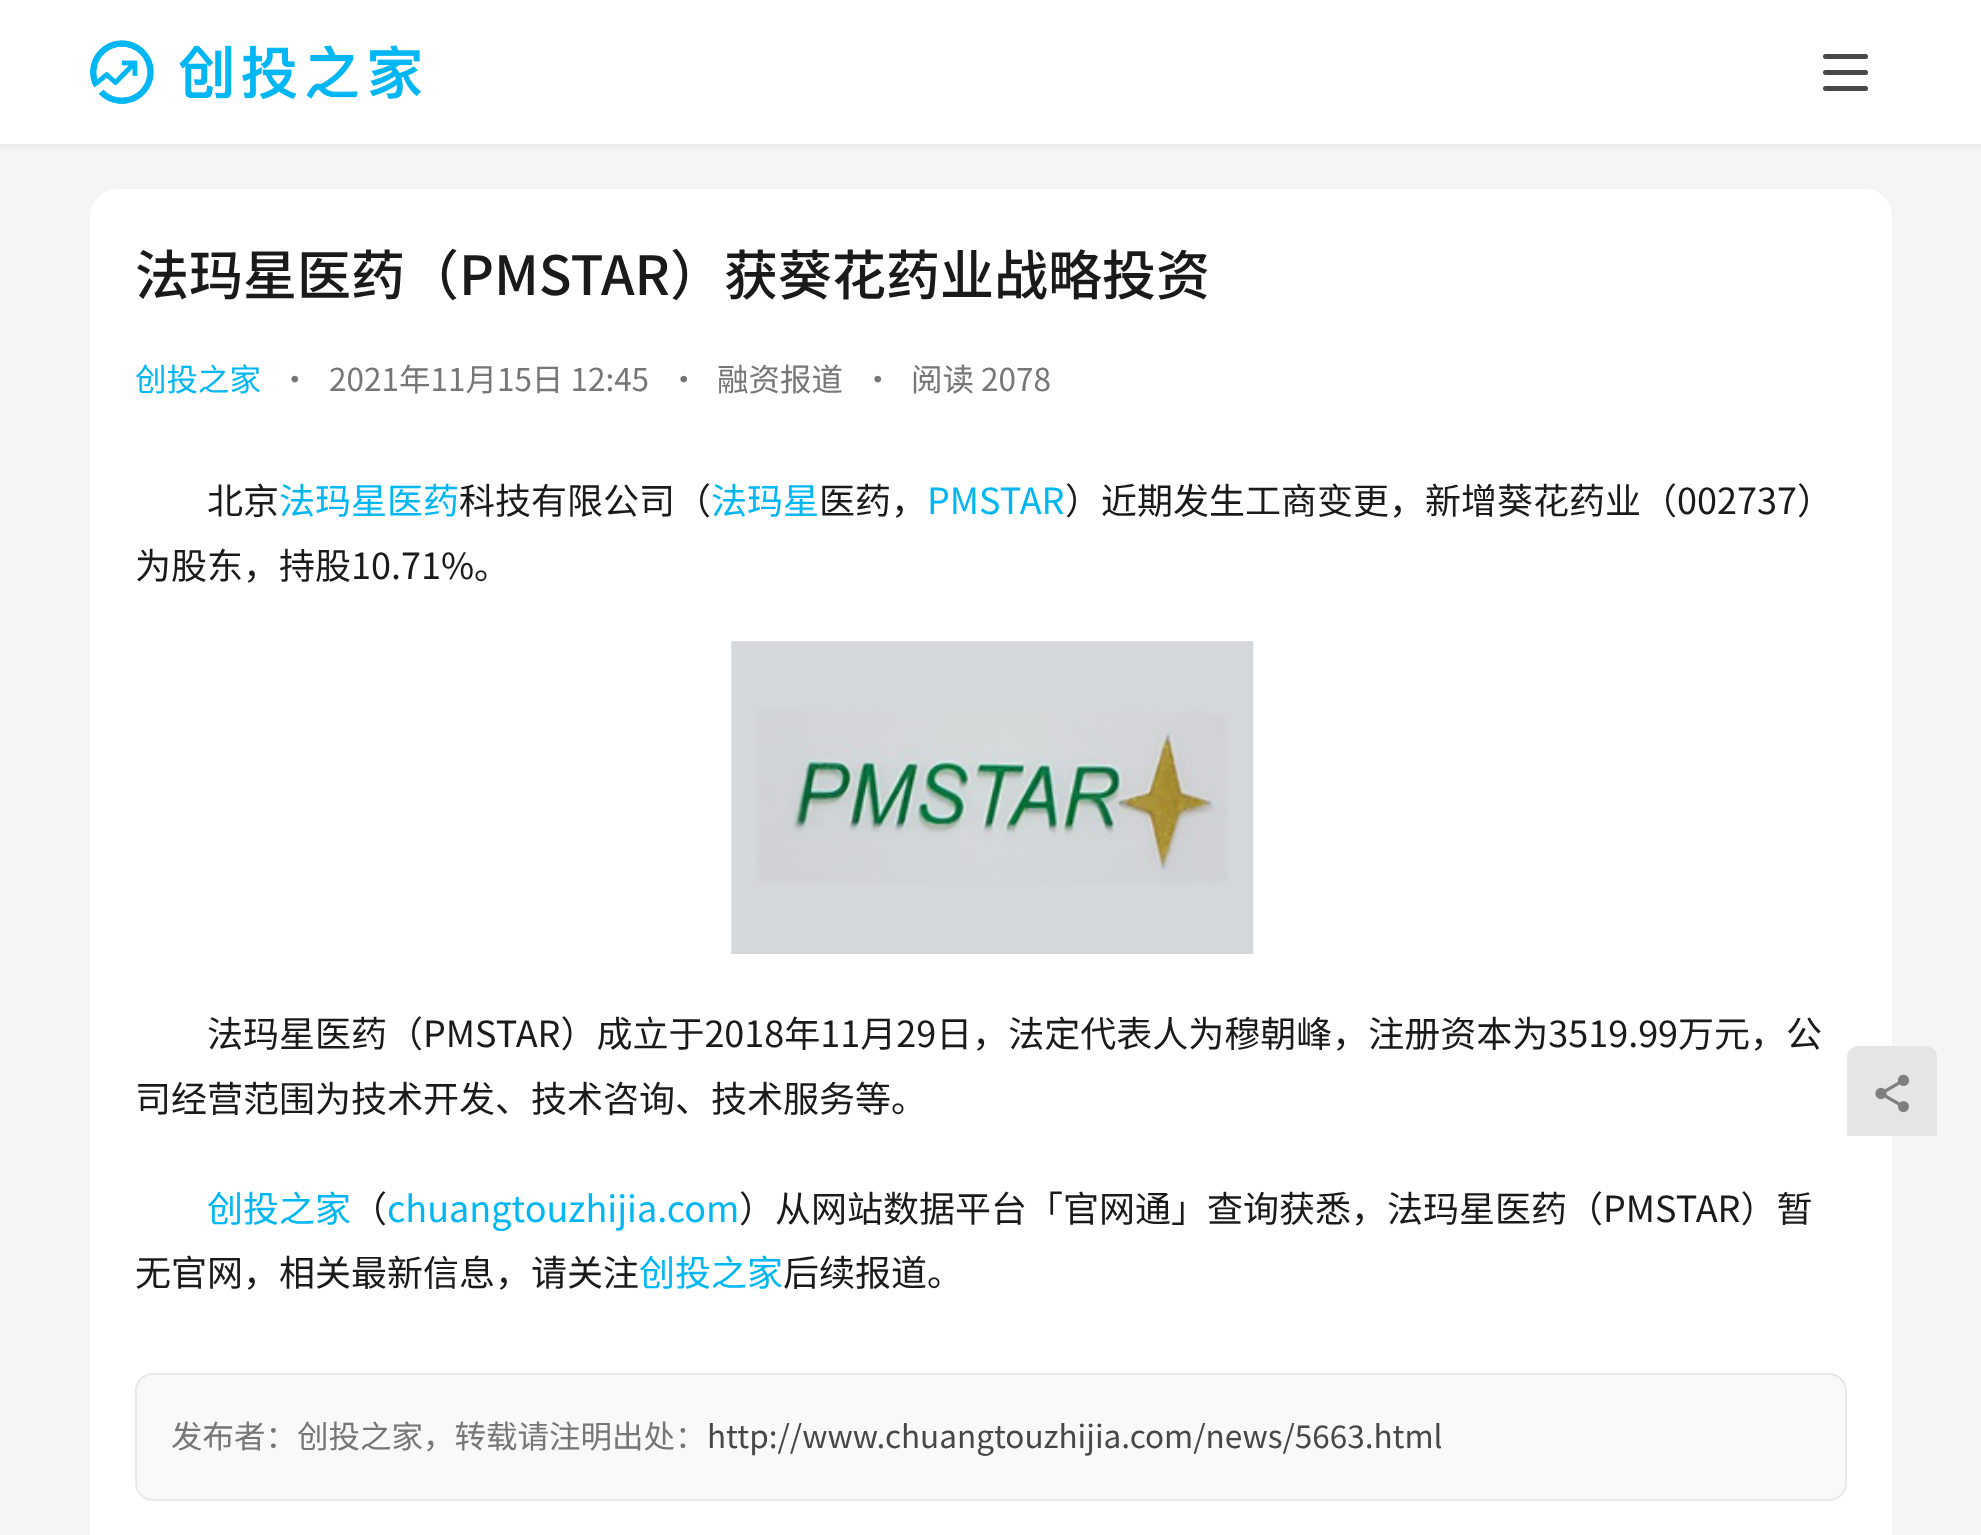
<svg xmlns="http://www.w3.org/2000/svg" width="1981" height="1535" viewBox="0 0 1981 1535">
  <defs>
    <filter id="blur1" x="-50%" y="-200%" width="200%" height="500%"><feGaussianBlur stdDeviation="3.5"/></filter>
  </defs>
  <rect width="100%" height="100%" fill="#f5f5f5"/>
  <rect x="-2" y="-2" width="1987" height="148" fill="#1a1a1a" fill-opacity="0.06" filter="url(#blur1)"/>
  <rect x="0" y="0" width="1981" height="144" fill="#ffffff"/>
  <image x="90" y="40" width="331" height="64" href="img1.png"/>
  <rect x="1823" y="54" width="45" height="5" rx="2.5" fill="#484848"/>
  <rect x="1823" y="70" width="45" height="5" rx="2.5" fill="#484848"/>
  <rect x="1823" y="86" width="45" height="5" rx="2.5" fill="#484848"/>
  <rect x="90" y="189" width="1802" height="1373" rx="27" fill="#ffffff"/>
  <text x="135" y="295" font-family="Noto Sans CJK SC" font-size="54" font-weight="500" fill="#1a1a1a">法玛星医药（PMSTAR）获葵花药业战略投资</text>
  <text x="135" y="391" font-family="Noto Sans CJK SC" font-size="31.5" fill="#00b7f4">创投之家</text>
  <text x="279" y="391" font-family="Noto Sans CJK SC" font-size="31.5" fill="#767676">•</text>
  <text x="329" y="391" font-family="Noto Sans CJK SC" font-size="31.5" fill="#767676">2021年11月15日 12:45</text>
  <text x="668" y="391" font-family="Noto Sans CJK SC" font-size="31.5" fill="#767676">•</text>
  <text x="717" y="391" font-family="Noto Sans CJK SC" font-size="31.5" fill="#767676">融资报道</text>
  <text x="862" y="391" font-family="Noto Sans CJK SC" font-size="31.5" fill="#767676">•</text>
  <text x="911" y="391" font-family="Noto Sans CJK SC" font-size="31.5" fill="#767676">阅读 2078</text>
  <text x="207" y="514" font-family="Noto Sans CJK SC" font-size="36" fill="#1a1a1a">北京</text>
  <text x="279" y="514" font-family="Noto Sans CJK SC" font-size="36" fill="#00b7f4">法玛星医药</text>
  <text x="459" y="514" font-family="Noto Sans CJK SC" font-size="36" fill="#1a1a1a">科技有限公司（</text>
  <text x="711" y="514" font-family="Noto Sans CJK SC" font-size="36" fill="#00b7f4">法玛星</text>
  <text x="819" y="514" font-family="Noto Sans CJK SC" font-size="36" fill="#1a1a1a">医药，</text>
  <text x="927" y="514" font-family="Noto Sans CJK SC" font-size="36" fill="#00b7f4">PMSTAR</text>
  <text x="1065" y="514" font-family="Noto Sans CJK SC" font-size="36" fill="#1a1a1a">）近期发生工商变更，新增葵花药业（002737）</text>
  <text x="135" y="579" font-family="Noto Sans CJK SC" font-size="36" fill="#1a1a1a">为股东，持股10.71%。</text>
  <image x="731" y="641" width="523" height="313" href="img2.png"/>
  <text x="207" y="1047" font-family="Noto Sans CJK SC" font-size="36" fill="#1a1a1a">法玛星医药（PMSTAR）成立于2018年11月29日，法定代表人为穆朝峰，注册资本为3519.99万元，公</text>
  <text x="135" y="1112" font-family="Noto Sans CJK SC" font-size="36" fill="#1a1a1a">司经营范围为技术开发、技术咨询、技术服务等。</text>
  <text x="207" y="1222" font-family="Noto Sans CJK SC" font-size="36" fill="#00b7f4">创投之家</text>
  <text x="351" y="1222" font-family="Noto Sans CJK SC" font-size="36" fill="#1a1a1a">（</text>
  <text x="387" y="1222" font-family="Noto Sans CJK SC" font-size="36" fill="#00b7f4">chuangtouzhijia.com</text>
  <text x="739" y="1222" font-family="Noto Sans CJK SC" font-size="36" fill="#1a1a1a">）从网站数据平台「官网通」查询获悉，法玛星医药（PMSTAR）暂</text>
  <text x="135" y="1286" font-family="Noto Sans CJK SC" font-size="36" fill="#1a1a1a">无官网，相关最新信息，请关注</text>
  <text x="639" y="1286" font-family="Noto Sans CJK SC" font-size="36" fill="#00b7f4">创投之家</text>
  <text x="783" y="1286" font-family="Noto Sans CJK SC" font-size="36" fill="#1a1a1a">后续报道。</text>
  <rect x="136" y="1374" width="1710" height="126" rx="17" fill="#f9f9f9" stroke="#e9e9e9" stroke-width="2"/>
  <text x="171" y="1448" font-family="Noto Sans CJK SC" font-size="31.5" fill="#767676">发布者：创投之家，转载请注明出处：</text>
  <text x="707" y="1448" font-family="Noto Sans CJK SC" font-size="31.5" fill="#474747">http://www.chuangtouzhijia.com/news/5663.html</text>
  <path d="M1858 1046H1926C1932 1046 1937 1051 1937 1057V1136H1847V1057C1847 1051 1852 1046 1858 1046Z" fill="#f5f5f5"/>
  <path d="M1858 1046H1926C1932 1046 1937 1051 1937 1057V1136H1847V1057C1847 1051 1852 1046 1858 1046Z" fill="#1a1a1a" fill-opacity="0.07"/>
  <image x="1875" y="1074" width="35" height="39" href="img3.png"/>
</svg>
